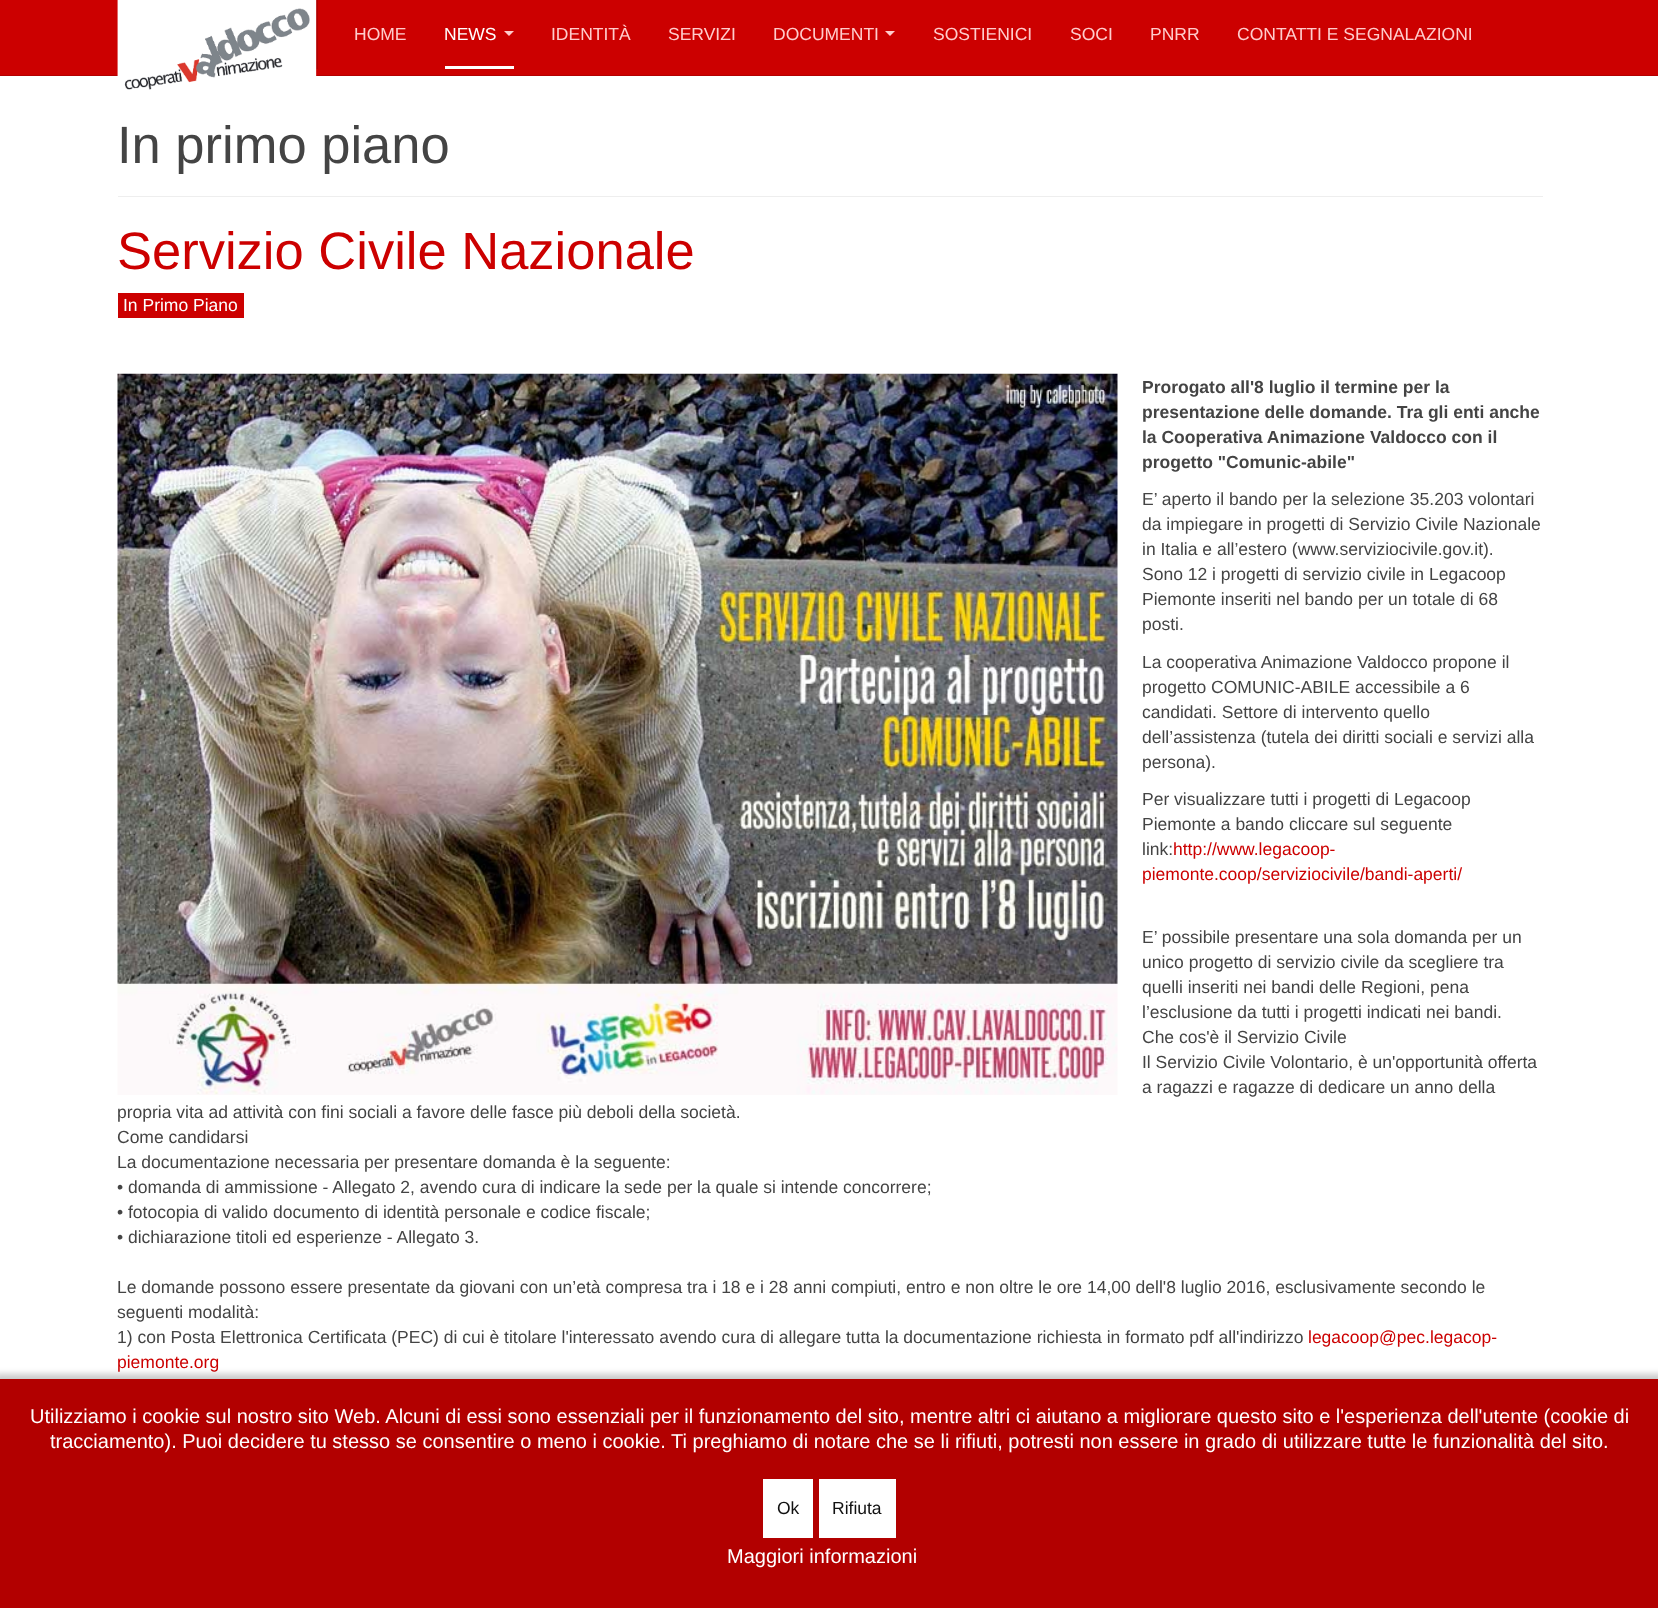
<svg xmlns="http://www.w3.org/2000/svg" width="1658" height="1608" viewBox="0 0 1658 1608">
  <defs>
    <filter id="blur1" x="-50%" y="-200%" width="200%" height="500%"><feGaussianBlur stdDeviation="3"/></filter>
  </defs>
  <rect width="100%" height="100%" fill="#ffffff"/>
  <rect x="0" y="0" width="1658" height="75" fill="#cc0000"/>
  <rect x="0" y="75" width="1658" height="1" fill="#b30000"/>
  <rect x="316" y="0" width="2" height="69" fill="#b30000"/>
  <image x="117" y="0" width="200" height="90" href="img1.png"/>
  <text x="354" y="40" font-family="Liberation Sans" font-size="17.5" fill="#ffcccc">HOME</text>
  <rect x="445" y="66" width="69" height="3" fill="#ffffff"/>
  <text x="444" y="40" font-family="Liberation Sans" font-size="17.5" fill="#ffffff">NEWS</text>
  <path d="M504 31H514L509 36Z" fill="#ffcccc"/>
  <text x="551" y="40" font-family="Liberation Sans" font-size="17.5" fill="#ffcccc">IDENTITÀ</text>
  <text x="668" y="40" font-family="Liberation Sans" font-size="17.5" fill="#ffcccc">SERVIZI</text>
  <text x="773" y="40" font-family="Liberation Sans" font-size="17.5" fill="#ffcccc">DOCUMENTI</text>
  <path d="M885 31H895L890 36Z" fill="#ffcccc"/>
  <text x="933" y="40" font-family="Liberation Sans" font-size="17.5" fill="#ffcccc">SOSTIENICI</text>
  <text x="1070" y="40" font-family="Liberation Sans" font-size="17.5" fill="#ffcccc">SOCI</text>
  <text x="1150" y="40" font-family="Liberation Sans" font-size="17.5" fill="#ffcccc">PNRR</text>
  <text x="1237" y="40" font-family="Liberation Sans" font-size="17.5" fill="#ffcccc">CONTATTI E SEGNALAZIONI</text>
  <rect x="118" y="196" width="1425" height="1" fill="#eeeeee"/>
  <text x="117" y="163" font-family="Liberation Sans" font-size="52.5" fill="#444444">In primo piano</text>
  <text x="117" y="269" font-family="Liberation Sans" font-size="52.5" fill="#cc0000">Servizio Civile Nazionale</text>
  <rect x="118" y="293" width="126" height="25" fill="#cc0000"/>
  <text x="123" y="311" font-family="Liberation Sans" font-size="17.5" fill="#ffffff">In Primo Piano</text>
  <image x="117" y="373" width="1001" height="722" href="img2.png"/>
  <text x="1142" y="393" font-family="Liberation Sans" font-size="17.5" font-weight="bold" fill="#444444">Prorogato all'8 luglio il termine per la</text>
  <text x="1142" y="418" font-family="Liberation Sans" font-size="17.5" font-weight="bold" fill="#444444">presentazione delle domande. Tra gli enti anche</text>
  <text x="1142" y="443" font-family="Liberation Sans" font-size="17.5" font-weight="bold" fill="#444444">la Cooperativa Animazione Valdocco con il</text>
  <text x="1142" y="468" font-family="Liberation Sans" font-size="17.5" font-weight="bold" fill="#444444">progetto "Comunic-abile"</text>
  <text x="1142" y="505" font-family="Liberation Sans" font-size="17.5" fill="#444444">E’ aperto il bando per la selezione 35.203 volontari</text>
  <text x="1142" y="530" font-family="Liberation Sans" font-size="17.5" fill="#444444">da impiegare in progetti di Servizio Civile Nazionale</text>
  <text x="1142" y="555" font-family="Liberation Sans" font-size="17.5" fill="#444444">in Italia e all’estero (www.serviziocivile.gov.it).</text>
  <text x="1142" y="580" font-family="Liberation Sans" font-size="17.5" fill="#444444">Sono 12 i progetti di servizio civile in Legacoop</text>
  <text x="1142" y="605" font-family="Liberation Sans" font-size="17.5" fill="#444444">Piemonte inseriti nel bando per un totale di 68</text>
  <text x="1142" y="630" font-family="Liberation Sans" font-size="17.5" fill="#444444">posti.</text>
  <text x="1142" y="668" font-family="Liberation Sans" font-size="17.5" fill="#444444">La cooperativa Animazione Valdocco propone il</text>
  <text x="1142" y="693" font-family="Liberation Sans" font-size="17.5" fill="#444444">progetto COMUNIC-ABILE accessibile a 6</text>
  <text x="1142" y="718" font-family="Liberation Sans" font-size="17.5" fill="#444444">candidati. Settore di intervento quello</text>
  <text x="1142" y="743" font-family="Liberation Sans" font-size="17.5" fill="#444444">dell’assistenza (tutela dei diritti sociali e servizi alla</text>
  <text x="1142" y="768" font-family="Liberation Sans" font-size="17.5" fill="#444444">persona).</text>
  <text x="1142" y="805" font-family="Liberation Sans" font-size="17.5" fill="#444444">Per visualizzare tutti i progetti di Legacoop</text>
  <text x="1142" y="830" font-family="Liberation Sans" font-size="17.5" fill="#444444">Piemonte a bando cliccare sul seguente</text>
  <text x="1142" y="855" font-family="Liberation Sans" font-size="17.5" fill="#444444">link:</text>
  <text x="1173" y="855" font-family="Liberation Sans" font-size="17.5" fill="#cc0000">http://www.legacoop-</text>
  <text x="1142" y="880" font-family="Liberation Sans" font-size="17.5" fill="#cc0000">piemonte.coop/serviziocivile/bandi-aperti/</text>
  <text x="1142" y="943" font-family="Liberation Sans" font-size="17.5" fill="#444444">E’ possibile presentare una sola domanda per un</text>
  <text x="1142" y="968" font-family="Liberation Sans" font-size="17.5" fill="#444444">unico progetto di servizio civile da scegliere tra</text>
  <text x="1142" y="993" font-family="Liberation Sans" font-size="17.5" fill="#444444">quelli inseriti nei bandi delle Regioni, pena</text>
  <text x="1142" y="1018" font-family="Liberation Sans" font-size="17.5" fill="#444444">l’esclusione da tutti i progetti indicati nei bandi.</text>
  <text x="1142" y="1043" font-family="Liberation Sans" font-size="17.5" fill="#444444">Che cos'è il Servizio Civile</text>
  <text x="1142" y="1068" font-family="Liberation Sans" font-size="17.5" fill="#444444">Il Servizio Civile Volontario, è un'opportunità offerta</text>
  <text x="1142" y="1093" font-family="Liberation Sans" font-size="17.5" fill="#444444">a ragazzi e ragazze di dedicare un anno della</text>
  <text x="117" y="1118" font-family="Liberation Sans" font-size="17.5" fill="#444444">propria vita ad attività con fini sociali a favore delle fasce più deboli della società.</text>
  <text x="117" y="1143" font-family="Liberation Sans" font-size="17.5" fill="#444444">Come candidarsi</text>
  <text x="117" y="1168" font-family="Liberation Sans" font-size="17.5" fill="#444444">La documentazione necessaria per presentare domanda è la seguente:</text>
  <text x="117" y="1193" font-family="Liberation Sans" font-size="17.5" fill="#444444">• domanda di ammissione - Allegato 2, avendo cura di indicare la sede per la quale si intende concorrere;</text>
  <text x="117" y="1218" font-family="Liberation Sans" font-size="17.5" fill="#444444">• fotocopia di valido documento di identità personale e codice fiscale;</text>
  <text x="117" y="1243" font-family="Liberation Sans" font-size="17.5" fill="#444444">• dichiarazione titoli ed esperienze - Allegato 3.</text>
  <text x="117" y="1293" font-family="Liberation Sans" font-size="17.5" fill="#444444">Le domande possono essere presentate da giovani con un’età compresa tra i 18 e i 28 anni compiuti, entro e non oltre le ore 14,00 dell'8 luglio 2016, esclusivamente secondo le</text>
  <text x="117" y="1318" font-family="Liberation Sans" font-size="17.5" fill="#444444">seguenti modalità:</text>
  <text x="117" y="1343" font-family="Liberation Sans" font-size="17.5" fill="#444444">1) con Posta Elettronica Certificata (PEC) di cui è titolare l'interessato avendo cura di allegare tutta la documentazione richiesta in formato pdf all'indirizzo</text>
  <text x="1308" y="1343" font-family="Liberation Sans" font-size="17.5" fill="#cc0000">legacoop@pec.legacop-</text>
  <text x="117" y="1368" font-family="Liberation Sans" font-size="17.5" fill="#cc0000">piemonte.org</text>
  <rect x="-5" y="1374" width="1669" height="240" fill="#000000" fill-opacity="0.21" filter="url(#blur1)"/>
  <rect x="0" y="1379" width="1658" height="229" fill="#b20000"/>
  <text x="30" y="1423" font-family="Liberation Sans" font-size="20" fill="#ffffff">Utilizziamo i cookie sul nostro sito Web. Alcuni di essi sono essenziali per il funzionamento del sito, mentre altri ci aiutano a migliorare questo sito e l'esperienza dell'utente (cookie di</text>
  <text x="50" y="1448" font-family="Liberation Sans" font-size="20" fill="#ffffff">tracciamento). Puoi decidere tu stesso se consentire o meno i cookie. Ti preghiamo di notare che se li rifiuti, potresti non essere in grado di utilizzare tutte le funzionalità del sito.</text>
  <rect x="763" y="1479" width="50" height="59" fill="#ffffff"/>
  <text x="777" y="1514" font-family="Liberation Sans" font-size="17.5" fill="#111111">Ok</text>
  <rect x="819" y="1479" width="77" height="59" fill="#ffffff"/>
  <text x="832" y="1514" font-family="Liberation Sans" font-size="17.5" fill="#111111">Rifiuta</text>
  <text x="727" y="1563" font-family="Liberation Sans" font-size="20" fill="#ffffff">Maggiori informazioni</text>
</svg>
